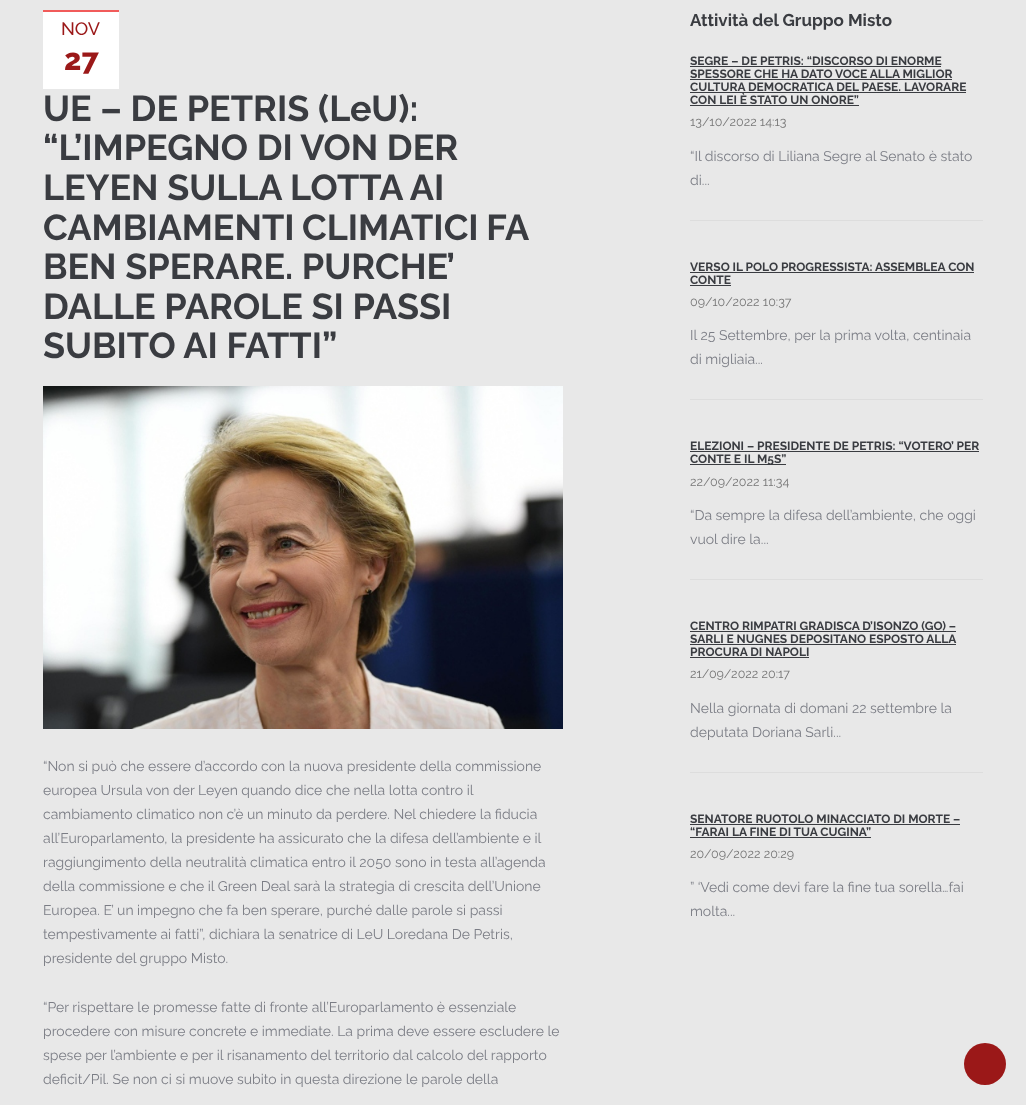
<svg xmlns="http://www.w3.org/2000/svg" width="1026" height="1105" viewBox="0 0 1026 1105">
  <rect width="100%" height="100%" fill="#e8e8e8"/>
  <rect x="43" y="12" width="76" height="77" fill="#ffffff"/>
  <rect x="43" y="10" width="76" height="2" fill="#f15b5a"/>
  <text x="61" y="35" font-family="Raleway" font-size="18" font-weight="500" fill="#9b1818">NOV</text>
  <text x="64" y="70" font-family="Raleway" font-size="30" font-weight="800" fill="#9b1818">27</text>
  <text x="43" y="121" font-family="Raleway" font-size="36" font-weight="bold" fill="#3a3c41">UE – DE PETRIS (LeU):</text>
  <text x="43" y="160" font-family="Raleway" font-size="36" font-weight="bold" fill="#3a3c41">“L’IMPEGNO DI VON DER</text>
  <text x="43" y="200" font-family="Raleway" font-size="36" font-weight="bold" fill="#3a3c41">LEYEN SULLA LOTTA AI</text>
  <text x="43" y="240" word-spacing="-1" font-family="Raleway" font-size="36" font-weight="bold" fill="#3a3c41">CAMBIAMENTI CLIMATICI FA</text>
  <text x="43" y="279" font-family="Raleway" font-size="36" font-weight="bold" fill="#3a3c41">BEN SPERARE. PURCHE’</text>
  <text x="43" y="319" font-family="Raleway" font-size="36" font-weight="bold" fill="#3a3c41">DALLE PAROLE SI PASSI</text>
  <text x="43" y="358" font-family="Raleway" font-size="36" font-weight="bold" fill="#3a3c41">SUBITO AI FATTI”</text>
  <image x="43" y="386" width="520" height="343" href="img1.png"/>
  <text x="43" y="771" font-family="Raleway" font-size="14" fill="#7b7d85">“Non si può che essere d’accordo con la nuova presidente della commissione</text>
  <text x="43" y="795" font-family="Raleway" font-size="14" fill="#7b7d85">europea Ursula von der Leyen quando dice che nella lotta contro il</text>
  <text x="43" y="819" font-family="Raleway" font-size="14" fill="#7b7d85">cambiamento climatico non c’è un minuto da perdere. Nel chiedere la fiducia</text>
  <text x="43" y="843" font-family="Raleway" font-size="14" fill="#7b7d85">all’Europarlamento, la presidente ha assicurato che la difesa dell’ambiente e il</text>
  <text x="43" y="867" font-family="Raleway" font-size="14" fill="#7b7d85">raggiungimento della neutralità climatica entro il 2050 sono in testa all’agenda</text>
  <text x="43" y="891" font-family="Raleway" font-size="14" fill="#7b7d85">della commissione e che il Green Deal sarà la strategia di crescita dell’Unione</text>
  <text x="43" y="915" font-family="Raleway" font-size="14" fill="#7b7d85">Europea. E’ un impegno che fa ben sperare, purché dalle parole si passi</text>
  <text x="43" y="939" font-family="Raleway" font-size="14" fill="#7b7d85">tempestivamente ai fatti”, dichiara la senatrice di LeU Loredana De Petris,</text>
  <text x="43" y="963" font-family="Raleway" font-size="14" fill="#7b7d85">presidente del gruppo Misto.</text>
  <text x="43" y="1012" font-family="Raleway" font-size="14" fill="#7b7d85">“Per rispettare le promesse fatte di fronte all’Europarlamento è essenziale</text>
  <text x="43" y="1036" font-family="Raleway" font-size="14" fill="#7b7d85">procedere con misure concrete e immediate. La prima deve essere escludere le</text>
  <text x="43" y="1060" font-family="Raleway" font-size="14" fill="#7b7d85">spese per l’ambiente e per il risanamento del territorio dal calcolo del rapporto</text>
  <text x="43" y="1084" font-family="Raleway" font-size="14" fill="#7b7d85">deficit/Pil. Se non ci si muove subito in questa direzione le parole della</text>
  <text x="690" y="26" font-family="Raleway" font-size="17" font-weight="bold" fill="#3a3c41">Attività del Gruppo Misto</text>
  <rect x="690" y="220" width="293" height="1" fill="#dddddd"/>
  <text x="690" y="65" font-family="Raleway" font-size="12" font-weight="bold" fill="#3a3c41">SEGRE – DE PETRIS: “DISCORSO DI ENORME</text>
  <rect x="690" y="66" width="251" height="1" fill="#3a3c41"/>
  <text x="690" y="78" font-family="Raleway" font-size="12" font-weight="bold" fill="#3a3c41">SPESSORE CHE HA DATO VOCE ALLA MIGLIOR</text>
  <rect x="690" y="79" width="262" height="1" fill="#3a3c41"/>
  <text x="690" y="91" font-family="Raleway" font-size="12" font-weight="bold" fill="#3a3c41">CULTURA DEMOCRATICA DEL PAESE. LAVORARE</text>
  <rect x="690" y="92" width="276" height="1" fill="#3a3c41"/>
  <text x="690" y="104" font-family="Raleway" font-size="12" font-weight="bold" fill="#3a3c41">CON LEI È STATO UN ONORE”</text>
  <rect x="690" y="105" width="169" height="1" fill="#3a3c41"/>
  <text x="690" y="126" font-family="Raleway" font-size="12.5" fill="#777777">13/10/2022 14:13</text>
  <text x="690" y="161" font-family="Raleway" font-size="14" fill="#7b7d85">“Il discorso di Liliana Segre al Senato è stato</text>
  <text x="690" y="185" font-family="Raleway" font-size="14" fill="#7b7d85">di...</text>
  <rect x="690" y="399" width="293" height="1" fill="#dddddd"/>
  <text x="690" y="271" font-family="Raleway" font-size="12" font-weight="bold" fill="#3a3c41">VERSO IL POLO PROGRESSISTA: ASSEMBLEA CON</text>
  <rect x="690" y="272" width="284" height="1" fill="#3a3c41"/>
  <text x="690" y="284" font-family="Raleway" font-size="12" font-weight="bold" fill="#3a3c41">CONTE</text>
  <rect x="690" y="285" width="41" height="1" fill="#3a3c41"/>
  <text x="690" y="306" font-family="Raleway" font-size="12.5" fill="#777777">09/10/2022 10:37</text>
  <text x="690" y="340" font-family="Raleway" font-size="14" fill="#7b7d85">Il 25 Settembre, per la prima volta, centinaia</text>
  <text x="690" y="364" font-family="Raleway" font-size="14" fill="#7b7d85">di migliaia...</text>
  <rect x="690" y="579" width="293" height="1" fill="#dddddd"/>
  <text x="690" y="450" font-family="Raleway" font-size="12" font-weight="bold" fill="#3a3c41">ELEZIONI – PRESIDENTE DE PETRIS: “VOTERO’ PER</text>
  <rect x="690" y="451" width="289" height="1" fill="#3a3c41"/>
  <rect x="690" y="464" width="96" height="1" fill="#3a3c41"/>
  <text x="690" y="463" font-family="Raleway" font-size="12" font-weight="bold" fill="#3a3c41">CONTE E IL M5S”</text>
  <text x="690" y="486" font-family="Raleway" font-size="12.5" fill="#777777">22/09/2022 11:34</text>
  <text x="690" y="520" font-family="Raleway" font-size="14" fill="#7b7d85">“Da sempre la difesa dell’ambiente, che oggi</text>
  <text x="690" y="544" font-family="Raleway" font-size="14" fill="#7b7d85">vuol dire la...</text>
  <rect x="690" y="772" width="293" height="1" fill="#dddddd"/>
  <text x="690" y="630" font-family="Raleway" font-size="12" font-weight="bold" fill="#3a3c41">CENTRO RIMPATRI GRADISCA D’ISONZO (GO) –</text>
  <rect x="690" y="631" width="266" height="1" fill="#3a3c41"/>
  <text x="690" y="643" font-family="Raleway" font-size="12" font-weight="bold" fill="#3a3c41">SARLI E NUGNES DEPOSITANO ESPOSTO ALLA</text>
  <rect x="690" y="644" width="266" height="1" fill="#3a3c41"/>
  <text x="690" y="656" font-family="Raleway" font-size="12" font-weight="bold" fill="#3a3c41">PROCURA DI NAPOLI</text>
  <rect x="690" y="657" width="119" height="1" fill="#3a3c41"/>
  <text x="690" y="678" font-family="Raleway" font-size="12.5" fill="#777777">21/09/2022 20:17</text>
  <text x="690" y="713" font-family="Raleway" font-size="14" fill="#7b7d85">Nella giornata di domani 22 settembre la</text>
  <text x="690" y="737" font-family="Raleway" font-size="14" fill="#7b7d85">deputata Doriana Sarli...</text>
  <text x="690" y="823" font-family="Raleway" font-size="12" font-weight="bold" fill="#3a3c41">SENATORE RUOTOLO MINACCIATO DI MORTE –</text>
  <rect x="690" y="824" width="270" height="1" fill="#3a3c41"/>
  <text x="690" y="836" font-family="Raleway" font-size="12" font-weight="bold" fill="#3a3c41">“FARAI LA FINE DI TUA CUGINA”</text>
  <rect x="690" y="837" width="181" height="1" fill="#3a3c41"/>
  <text x="690" y="858" font-family="Raleway" font-size="12.5" fill="#777777">20/09/2022 20:29</text>
  <text x="690" y="892" font-family="Raleway" font-size="14" fill="#7b7d85">” ‘Vedi come devi fare la fine tua sorella…fai</text>
  <text x="690" y="916" font-family="Raleway" font-size="14" fill="#7b7d85">molta...</text>
  <circle cx="985" cy="1064" r="21" fill="#9b1818"/>
</svg>
